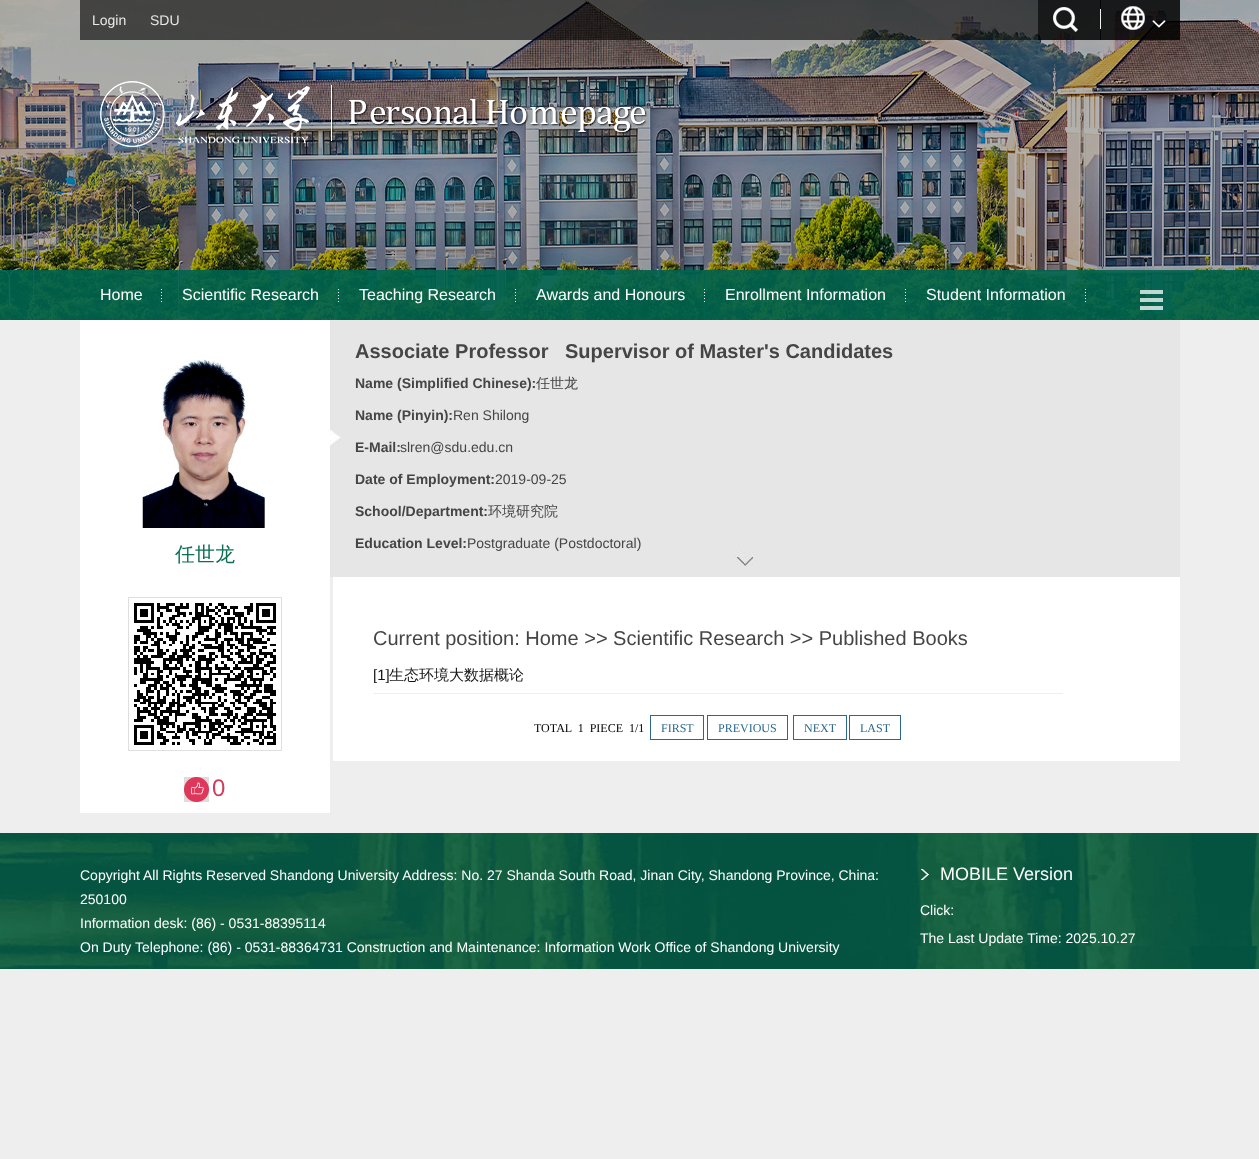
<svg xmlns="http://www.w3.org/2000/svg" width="1259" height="1159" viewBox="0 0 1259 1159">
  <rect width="100%" height="100%" fill="#eeeeee"/>
  <image x="0" y="0" width="1259" height="320" href="img1.png"/>
  <rect x="80" y="0" width="1100" height="40" fill="#000000" fill-opacity="0.6"/>
  <text x="92" y="25" font-family="Liberation Sans" font-size="14" fill="#e8e8e8">Login</text>
  <text x="150" y="25" font-family="Liberation Sans" font-size="14" fill="#e8e8e8">SDU</text>
  <rect x="1038" y="0" width="142" height="40" fill="#000000" fill-opacity="0.6"/>
  <image x="1100" y="0" width="1" height="40" href="img2.png"/>
  <image x="1053" y="7" width="25" height="25" href="img3.png"/>
  <image x="1152" y="20" width="14" height="8" href="img4.png"/>
  <image x="1121" y="6" width="24" height="24" href="img5.png"/>
  <image x="100" y="81" width="548" height="66" href="img6.png"/>
  <rect x="0" y="270" width="1259" height="50" fill="#00644e" fill-opacity="0.9"/>
  <image x="161" y="270" width="1" height="50" href="img7.png"/>
  <text x="100" y="300" font-family="Liberation Sans" font-size="16" fill="#ffffff">Home</text>
  <image x="338" y="270" width="1" height="50" href="img8.png"/>
  <text x="182" y="300" font-family="Liberation Sans" font-size="16" fill="#ffffff">Scientific Research</text>
  <image x="515" y="270" width="1" height="50" href="img9.png"/>
  <text x="359" y="300" font-family="Liberation Sans" font-size="16" fill="#ffffff">Teaching Research</text>
  <image x="704" y="270" width="1" height="50" href="img10.png"/>
  <text x="536" y="300" font-family="Liberation Sans" font-size="16" fill="#ffffff">Awards and Honours</text>
  <image x="905" y="270" width="1" height="50" href="img11.png"/>
  <text x="725" y="300" font-family="Liberation Sans" font-size="16" fill="#ffffff">Enrollment Information</text>
  <image x="1085" y="270" width="1" height="50" href="img12.png"/>
  <text x="926" y="300" font-family="Liberation Sans" font-size="16" fill="#ffffff">Student Information</text>
  <image x="1140" y="290" width="23" height="20" href="img13.png"/>
  <image x="80" y="320" width="1100" height="257" href="img14.png"/>
  <image x="330" y="430" width="11" height="16" href="img15.png"/>
  <text x="355" y="358" font-family="Liberation Sans" font-size="20" font-weight="bold" fill="#454545">Associate Professor</text>
  <text x="565" y="358" font-family="Liberation Sans" font-size="20" font-weight="bold" fill="#454545">Supervisor of Master's Candidates</text>
  <text x="355" y="388" font-family="Liberation Sans" font-size="14" font-weight="bold" fill="#454545">Name (Simplified Chinese):</text>
  <text x="536" y="388" font-family="WenQuanYi Zen Hei" font-size="14" font-weight="500" fill="#454545">任世龙</text>
  <text x="355" y="420" font-family="Liberation Sans" font-size="14" font-weight="bold" fill="#454545">Name (Pinyin):</text>
  <text x="453" y="420" font-family="Liberation Sans" font-size="14" fill="#454545">Ren Shilong</text>
  <text x="355" y="452" font-family="Liberation Sans" font-size="14" font-weight="bold" fill="#454545">E-Mail:</text>
  <text x="400" y="452" font-family="Liberation Sans" font-size="14" fill="#454545">slren@sdu.edu.cn</text>
  <text x="355" y="484" font-family="Liberation Sans" font-size="14" font-weight="bold" fill="#454545">Date of Employment:</text>
  <text x="495" y="484" font-family="Liberation Sans" font-size="14" fill="#454545">2019-09-25</text>
  <text x="355" y="516" font-family="Liberation Sans" font-size="14" font-weight="bold" fill="#454545">School/Department:</text>
  <text x="488" y="516" font-family="WenQuanYi Zen Hei" font-size="14" font-weight="500" fill="#454545">环境研究院</text>
  <text x="355" y="548" font-family="Liberation Sans" font-size="14" font-weight="bold" fill="#454545">Education Level:</text>
  <text x="467" y="548" font-family="Liberation Sans" font-size="14" fill="#454545">Postgraduate (Postdoctoral)</text>
  <image x="735" y="551" width="20" height="16" href="img16.png"/>
  <image x="142" y="359" width="123" height="169" href="img17.png"/>
  <text x="175" y="561" font-family="WenQuanYi Zen Hei" font-size="20" font-weight="500" fill="#0f6f56">任世龙</text>
  <rect x="333" y="577" width="847" height="184" fill="#ffffff"/>
  <text x="373" y="645" font-family="Liberation Sans" font-size="20" fill="#454545">Current position: Home &gt;&gt; Scientific Research &gt;&gt; Published Books</text>
  <rect x="373" y="693" width="690" height="1" fill="#eeeeee"/>
  <text x="373" y="680" font-family="Liberation Sans" font-size="15" fill="#161616">[1]</text>
  <text x="389" y="680" font-family="WenQuanYi Zen Hei" font-size="15" font-weight="500" fill="#161616">生态环境大数据概论</text>
  <text x="534" y="732" font-family="Liberation Serif" font-size="12" fill="#000000" xml:space="preserve">TOTAL  1  PIECE  1/1</text>
  <rect x="650.5" y="715.5" width="53" height="24" fill="none" stroke="#2a688c"/>
  <text x="661" y="732" font-family="Liberation Serif" font-size="12" fill="#2a688c">FIRST</text>
  <rect x="707.5" y="715.5" width="80" height="24" fill="none" stroke="#2a688c"/>
  <text x="718" y="732" font-family="Liberation Serif" font-size="12" fill="#2a688c">PREVIOUS</text>
  <rect x="793.5" y="715.5" width="53" height="24" fill="none" stroke="#2a688c"/>
  <text x="804" y="732" font-family="Liberation Serif" font-size="12" fill="#2a688c">NEXT</text>
  <rect x="849.5" y="715.5" width="51" height="24" fill="none" stroke="#2a688c"/>
  <text x="860" y="732" font-family="Liberation Serif" font-size="12" fill="#2a688c">LAST</text>
  <rect x="80" y="577" width="250" height="236" fill="#ffffff"/>
  <rect x="128.5" y="597.5" width="153" height="153" fill="none" stroke="#dfdfdf"/>
  <image x="134" y="603" width="142" height="142" href="img18.png"/>
  <image x="184" y="777" width="25" height="25" href="img19.png"/>
  <text x="212" y="796" font-family="Liberation Sans" font-size="24" fill="#d23b5b">0</text>
  <image x="0" y="833" width="1259" height="136" href="img20.png"/>
  <text x="80" y="880" font-family="Liberation Sans" font-size="14" fill="#ffffff">Copyright All Rights Reserved Shandong University Address: No. 27 Shanda South Road, Jinan City, Shandong Province, China:</text>
  <text x="80" y="904" font-family="Liberation Sans" font-size="14" fill="#ffffff">250100</text>
  <text x="80" y="928" font-family="Liberation Sans" font-size="14" fill="#ffffff">Information desk: (86) - 0531-88395114</text>
  <text x="80" y="952" font-family="Liberation Sans" font-size="14" fill="#ffffff">On Duty Telephone: (86) - 0531-88364731 Construction and Maintenance: Information Work Office of Shandong University</text>
  <image x="921" y="869" width="8" height="11" href="img21.png"/>
  <text x="940" y="880" font-family="Liberation Sans" font-size="18" fill="#ffffff">MOBILE Version</text>
  <text x="920" y="915" font-family="Liberation Sans" font-size="14" fill="#ffffff">Click:</text>
  <text x="920" y="943" font-family="Liberation Sans" font-size="14" fill="#ffffff">The Last Update Time: 2025.10.27</text>
</svg>
